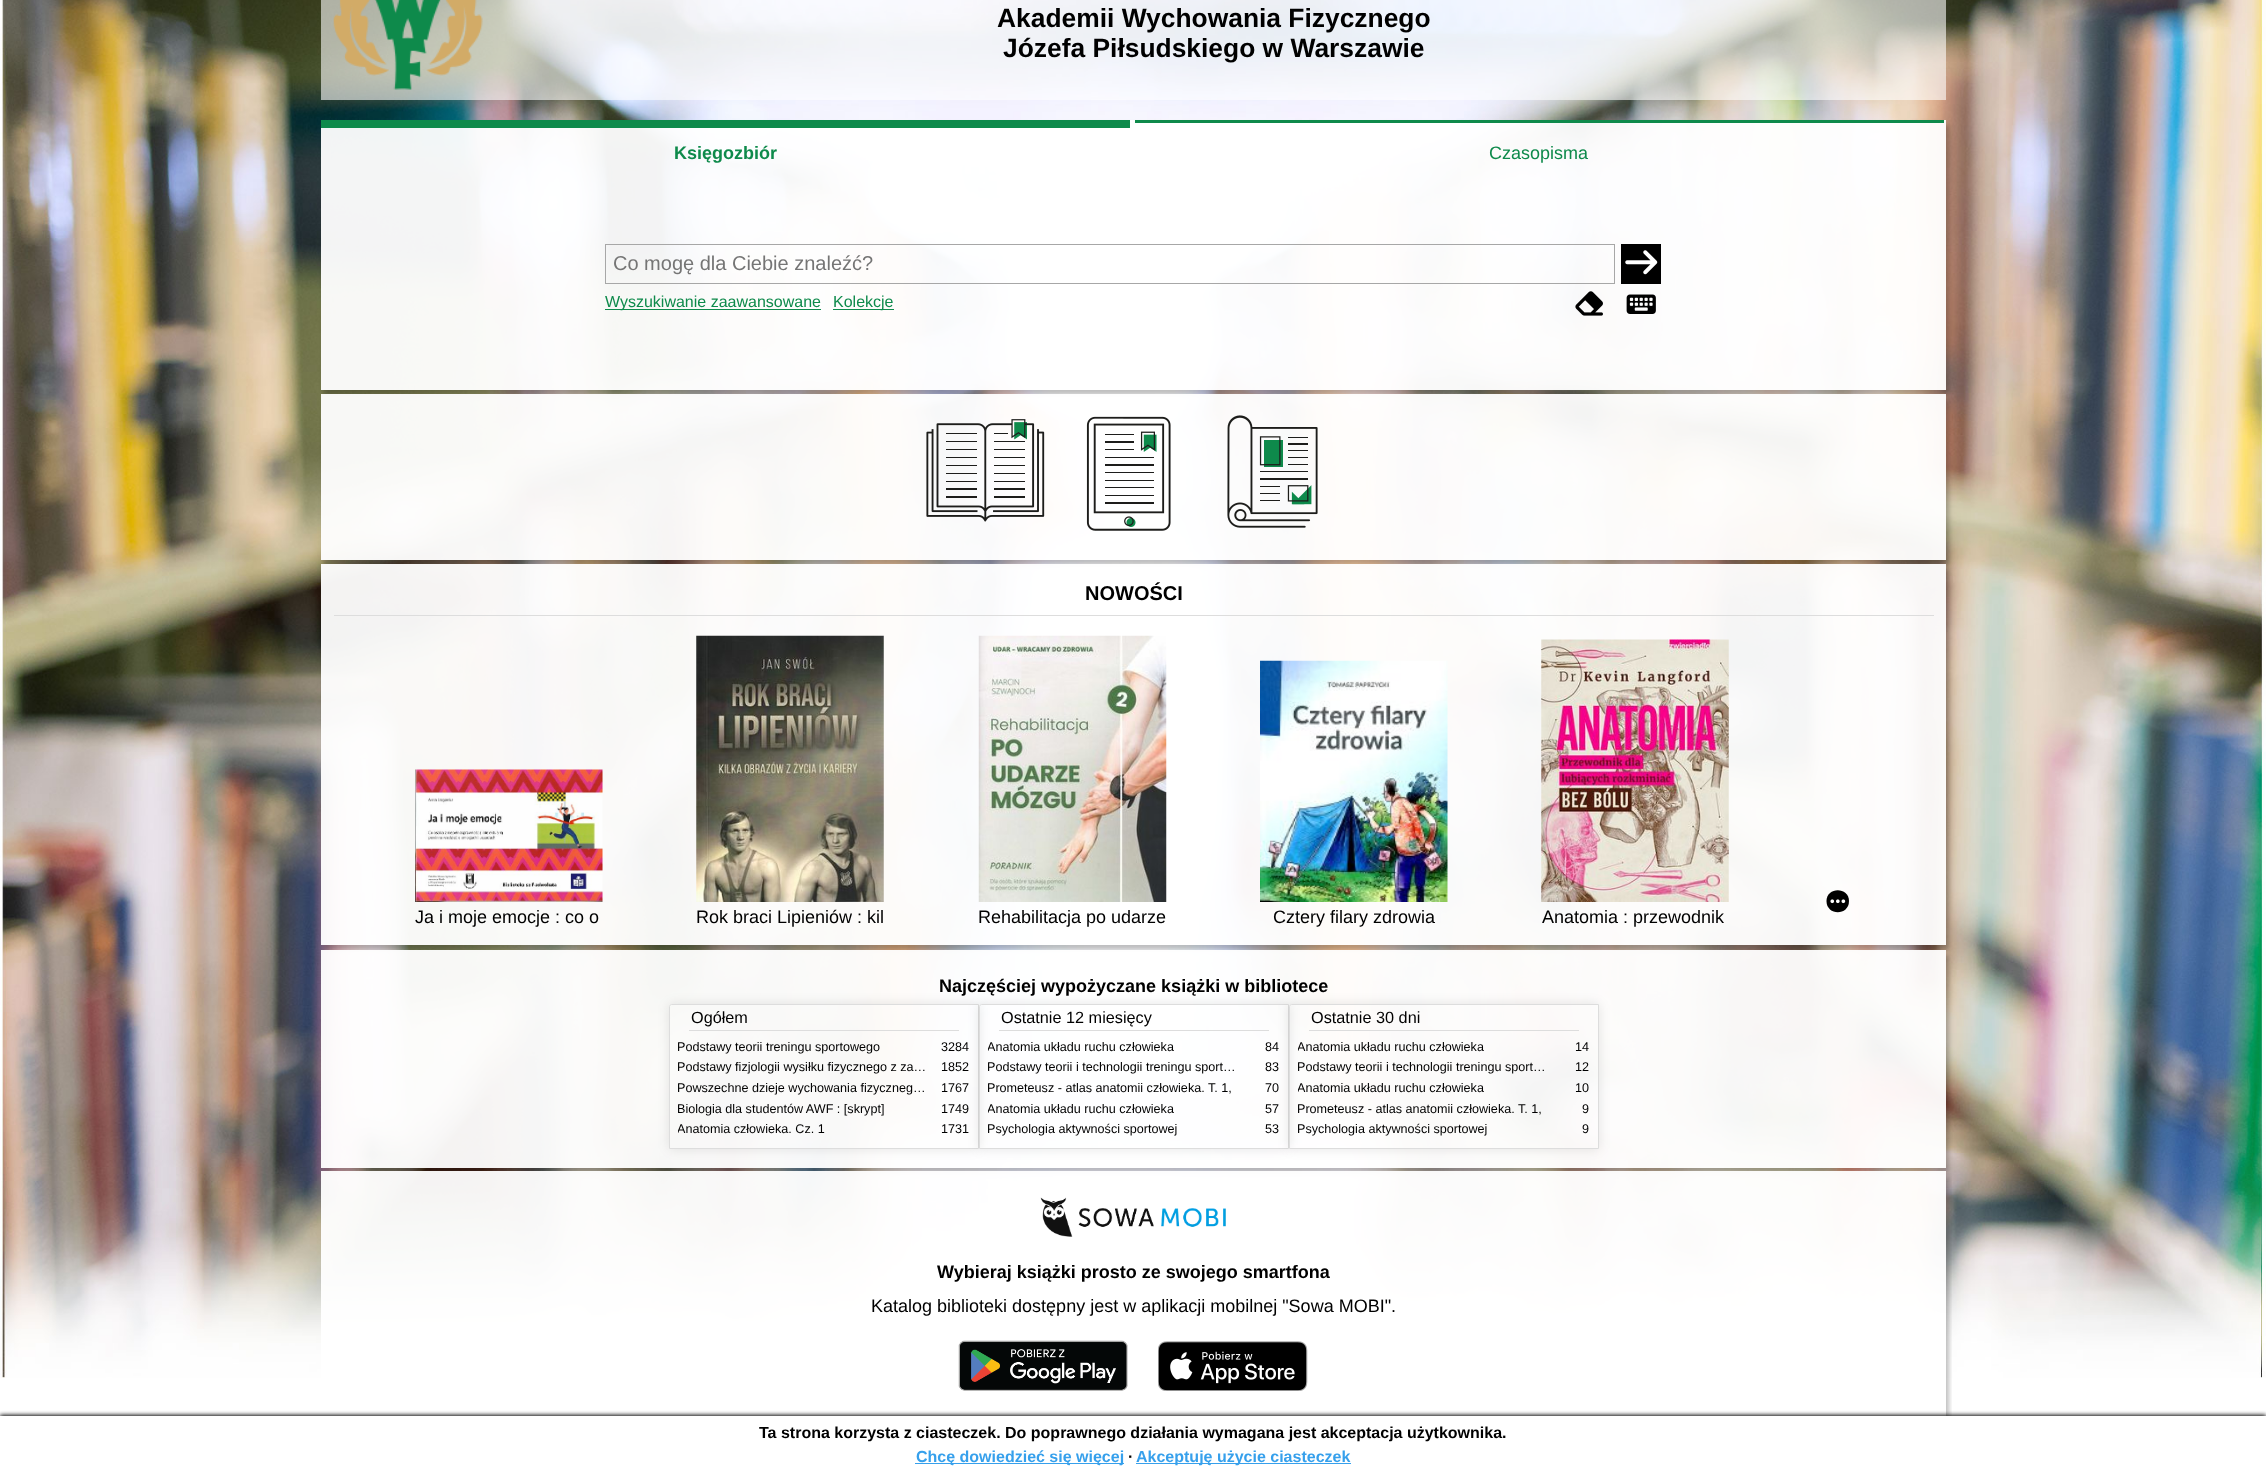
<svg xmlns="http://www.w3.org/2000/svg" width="2266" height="1477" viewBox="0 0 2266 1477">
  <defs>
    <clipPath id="clip1"><path d="M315 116H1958V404H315ZM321 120H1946V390H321Z" clip-rule="evenodd"/></clipPath>
    <filter id="blur1" x="-50%" y="-200%" width="200%" height="500%"><feGaussianBlur stdDeviation="2.5"/></filter>
    <clipPath id="clip2"><path d="M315 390H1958V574H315ZM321 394H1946V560H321Z" clip-rule="evenodd"/></clipPath>
    <clipPath id="clip3"><path d="M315 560H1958V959H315ZM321 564H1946V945H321Z" clip-rule="evenodd"/></clipPath>
    <clipPath id="clip4"><path d="M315 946H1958V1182H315ZM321 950H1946V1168H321Z" clip-rule="evenodd"/></clipPath>
    <clipPath id="clip5"><path d="M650 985H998V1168H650ZM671.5 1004H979V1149H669V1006.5C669 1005 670 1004 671.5 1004Z" clip-rule="evenodd"/></clipPath>
    <filter id="blur2" x="-50%" y="-200%" width="200%" height="500%"><feGaussianBlur stdDeviation="6"/></filter>
    <clipPath id="clip6"><rect x="678" y="1040" width="250" height="14"/></clipPath>
    <clipPath id="clip7"><path d="M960 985H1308V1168H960ZM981.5 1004H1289V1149H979V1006.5C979 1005 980 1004 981.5 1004Z" clip-rule="evenodd"/></clipPath>
    <clipPath id="clip8"><rect x="678" y="1060" width="250" height="15"/></clipPath>
    <clipPath id="clip9"><rect x="678" y="1081" width="250" height="14"/></clipPath>
    <clipPath id="clip10"><rect x="678" y="1101" width="250" height="15"/></clipPath>
    <clipPath id="clip11"><rect x="678" y="1123" width="250" height="13"/></clipPath>
    <clipPath id="clip12"><rect x="988" y="1040" width="250" height="14"/></clipPath>
    <clipPath id="clip13"><path d="M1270 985H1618V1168H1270ZM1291.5 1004H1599V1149H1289V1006.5C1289 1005 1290 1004 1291.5 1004Z" clip-rule="evenodd"/></clipPath>
    <clipPath id="clip14"><rect x="988" y="1060" width="250" height="15"/></clipPath>
    <clipPath id="clip15"><rect x="988" y="1081" width="250" height="14"/></clipPath>
    <clipPath id="clip16"><rect x="988" y="1101" width="250" height="15"/></clipPath>
    <clipPath id="clip17"><rect x="988" y="1123" width="250" height="13"/></clipPath>
    <clipPath id="clip18"><rect x="1298" y="1040" width="250" height="14"/></clipPath>
    <clipPath id="clip19"><rect x="1298" y="1060" width="250" height="15"/></clipPath>
    <clipPath id="clip20"><rect x="1298" y="1081" width="250" height="14"/></clipPath>
    <clipPath id="clip21"><rect x="1298" y="1101" width="250" height="15"/></clipPath>
    <clipPath id="clip22"><rect x="1298" y="1123" width="250" height="13"/></clipPath>
    <clipPath id="clip23"><rect x="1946" y="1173" width="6" height="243"/></clipPath>
    <filter id="blur3" x="-50%" y="-200%" width="200%" height="500%"><feGaussianBlur stdDeviation="2"/></filter>
  </defs>
  <rect width="100%" height="100%" fill="#ffffff"/>
  <image x="0" y="0" width="2266" height="1378" href="img1.png"/>
  <rect x="321" y="0" width="1625" height="100" fill="#ffffff" fill-opacity="0.6"/>
  <image x="333" y="0" width="150" height="90" href="img2.png"/>
  <text x="997" y="27" font-family="Liberation Sans" font-size="26.4" font-weight="bold" fill="#000000">Akademii Wychowania Fizycznego</text>
  <text x="1003" y="57" font-family="Liberation Sans" font-size="26.4" font-weight="bold" fill="#000000">Józefa Piłsudskiego w Warszawie</text>
  <g clip-path="url(#clip1)">
    <rect x="324" y="125" width="1625" height="270" fill="#000000" fill-opacity="0.25" filter="url(#blur1)"/>
  </g>
  <rect x="321" y="120" width="1625" height="270" fill="#ffffff" fill-opacity="0.95"/>
  <rect x="321" y="120" width="809" height="8" fill="#0e8a4b"/>
  <text x="674" y="159" font-family="Liberation Sans" font-size="18" font-weight="bold" fill="#0e8a4b">Księgozbiór</text>
  <rect x="1135" y="120" width="809" height="3" fill="#0e8a4b"/>
  <text x="1489" y="159" font-family="Liberation Sans" font-size="18" fill="#0e8a4b">Czasopisma</text>
  <rect x="605.5" y="244.5" width="1009" height="39" fill="none" stroke="#a7a7a7"/>
  <text x="613" y="270" font-family="Liberation Sans" font-size="20" fill="#757575">Co mogę dla Ciebie znaleźć?</text>
  <rect x="1621" y="244" width="40" height="40" fill="#000000"/>
  <image x="1625" y="250" width="33" height="25" href="img3.png"/>
  <rect x="605" y="309" width="216" height="1" fill="#0e8a4b"/>
  <text x="605" y="307" font-family="Liberation Sans" font-size="16" fill="#0e8a4b">Wyszukiwanie zaawansowane</text>
  <rect x="833" y="309" width="61" height="1" fill="#0e8a4b"/>
  <text x="833" y="307" font-family="Liberation Sans" font-size="16" fill="#0e8a4b">Kolekcje</text>
  <image x="1575" y="291" width="28" height="25" href="img4.png"/>
  <image x="1626" y="294" width="30" height="20" href="img5.png"/>
  <g clip-path="url(#clip2)">
    <rect x="324" y="399" width="1625" height="166" fill="#000000" fill-opacity="0.25" filter="url(#blur1)"/>
  </g>
  <rect x="321" y="394" width="1625" height="166" fill="#ffffff" fill-opacity="0.95"/>
  <image x="926" y="419" width="119" height="103" href="img6.png"/>
  <image x="1086" y="416" width="85" height="115" href="img7.png"/>
  <image x="1227" y="415" width="91" height="113" href="img8.png"/>
  <g clip-path="url(#clip3)">
    <rect x="324" y="569" width="1625" height="381" fill="#000000" fill-opacity="0.25" filter="url(#blur1)"/>
  </g>
  <rect x="321" y="564" width="1625" height="381" fill="#ffffff" fill-opacity="0.95"/>
  <rect x="334" y="615" width="1600" height="1" fill="#dddddd"/>
  <text x="1085" y="600" font-family="Liberation Sans" font-size="20" font-weight="bold" fill="#000000">NOWOŚCI</text>
  <path d="M1826.5 901C1826.5 886.5 1849 886.5 1849 901C1849 916 1826.5 916 1826.5 901Z" fill="#000000"/>
  <image x="1830" y="899" width="16" height="5" href="img9.png"/>
  <image x="415" y="769" width="188" height="133" href="img10.png"/>
  <text x="415" y="923" font-family="Liberation Sans" font-size="18" fill="#000000">Ja i moje emocje : co o</text>
  <image x="696" y="635" width="188" height="267" href="img11.png"/>
  <text x="696" y="923" font-family="Liberation Sans" font-size="18" fill="#000000">Rok braci Lipieniów : kil</text>
  <image x="978" y="635" width="189" height="267" href="img12.png"/>
  <text x="978" y="923" font-family="Liberation Sans" font-size="18" fill="#000000">Rehabilitacja po udarze</text>
  <image x="1260" y="660" width="188" height="242" href="img13.png"/>
  <text x="1273" y="923" font-family="Liberation Sans" font-size="18" fill="#000000">Cztery filary zdrowia</text>
  <image x="1541" y="639" width="188" height="263" href="img14.png"/>
  <text x="1542" y="923" font-family="Liberation Sans" font-size="18" fill="#000000">Anatomia : przewodnik</text>
  <g clip-path="url(#clip4)">
    <rect x="324" y="955" width="1625" height="218" fill="#000000" fill-opacity="0.25" filter="url(#blur1)"/>
  </g>
  <rect x="321" y="950" width="1625" height="218" fill="#ffffff" fill-opacity="0.95"/>
  <text x="939" y="992" font-family="Liberation Sans" font-size="18" font-weight="bold" fill="#000000">Najczęściej wypożyczane książki w bibliotece</text>
  <g clip-path="url(#clip5)">
    <rect x="669" y="1004" width="310" height="145" rx="2.5" fill="#000000" fill-opacity="0.1" filter="url(#blur2)"/>
  </g>
  <path d="M671.5 1004.5H978.5V1148.5H669.5V1006.5C669.5 1005.5 670.5 1004.5 671.5 1004.5Z" fill="none" stroke="#dddddd"/>
  <rect x="689" y="1030" width="270" height="1" fill="#dddddd"/>
  <text x="691" y="1023" font-family="Liberation Sans" font-size="16.25" fill="#000000">Ogółem</text>
  <g clip-path="url(#clip6)">
    <text x="677" y="1051" font-family="Liberation Sans" font-size="12.6" fill="#000000">Podstawy teorii treningu sportowego</text>
  </g>
  <g clip-path="url(#clip7)">
    <rect x="979" y="1004" width="310" height="145" rx="2.5" fill="#000000" fill-opacity="0.1" filter="url(#blur2)"/>
  </g>
  <text x="941" y="1051" font-family="Liberation Sans" font-size="12.6" fill="#000000">3284</text>
  <g clip-path="url(#clip8)">
    <text x="677" y="1071" font-family="Liberation Sans" font-size="12.6" fill="#000000">Podstawy fizjologii wysiłku fizycznego z za…</text>
  </g>
  <text x="941" y="1071" font-family="Liberation Sans" font-size="12.6" fill="#000000">1852</text>
  <g clip-path="url(#clip9)">
    <text x="677" y="1092" font-family="Liberation Sans" font-size="12.6" fill="#000000">Powszechne dzieje wychowania fizyczneg…</text>
  </g>
  <text x="941" y="1092" font-family="Liberation Sans" font-size="12.6" fill="#000000">1767</text>
  <g clip-path="url(#clip10)">
    <text x="677" y="1113" font-family="Liberation Sans" font-size="12.6" fill="#000000">Biologia dla studentów AWF : [skrypt]</text>
  </g>
  <text x="941" y="1113" font-family="Liberation Sans" font-size="12.6" fill="#000000">1749</text>
  <g clip-path="url(#clip11)">
    <text x="677" y="1133" font-family="Liberation Sans" font-size="12.6" fill="#000000">Anatomia człowieka. Cz. 1</text>
  </g>
  <text x="941" y="1133" font-family="Liberation Sans" font-size="12.6" fill="#000000">1731</text>
  <path d="M981.5 1004.5H1288.5V1148.5H979.5V1006.5C979.5 1005.5 980.5 1004.5 981.5 1004.5Z" fill="none" stroke="#dddddd"/>
  <rect x="999" y="1030" width="270" height="1" fill="#dddddd"/>
  <text x="1001" y="1023" font-family="Liberation Sans" font-size="16.25" fill="#000000">Ostatnie 12 miesięcy</text>
  <g clip-path="url(#clip12)">
    <text x="987" y="1051" font-family="Liberation Sans" font-size="12.6" fill="#000000">Anatomia układu ruchu człowieka</text>
  </g>
  <g clip-path="url(#clip13)">
    <rect x="1289" y="1004" width="310" height="145" rx="2.5" fill="#000000" fill-opacity="0.1" filter="url(#blur2)"/>
  </g>
  <text x="1265" y="1051" font-family="Liberation Sans" font-size="12.6" fill="#000000">84</text>
  <g clip-path="url(#clip14)">
    <text x="987" y="1071" font-family="Liberation Sans" font-size="12.6" fill="#000000">Podstawy teorii i technologii treningu sport…</text>
  </g>
  <text x="1265" y="1071" font-family="Liberation Sans" font-size="12.6" fill="#000000">83</text>
  <g clip-path="url(#clip15)">
    <text x="987" y="1092" font-family="Liberation Sans" font-size="12.6" fill="#000000">Prometeusz - atlas anatomii człowieka. T. 1,</text>
  </g>
  <text x="1265" y="1092" font-family="Liberation Sans" font-size="12.6" fill="#000000">70</text>
  <g clip-path="url(#clip16)">
    <text x="987" y="1113" font-family="Liberation Sans" font-size="12.6" fill="#000000">Anatomia układu ruchu człowieka</text>
  </g>
  <text x="1265" y="1113" font-family="Liberation Sans" font-size="12.6" fill="#000000">57</text>
  <g clip-path="url(#clip17)">
    <text x="987" y="1133" font-family="Liberation Sans" font-size="12.6" fill="#000000">Psychologia aktywności sportowej</text>
  </g>
  <text x="1265" y="1133" font-family="Liberation Sans" font-size="12.6" fill="#000000">53</text>
  <path d="M1291.5 1004.5H1598.5V1148.5H1289.5V1006.5C1289.5 1005.5 1290.5 1004.5 1291.5 1004.5Z" fill="none" stroke="#dddddd"/>
  <rect x="1309" y="1030" width="270" height="1" fill="#dddddd"/>
  <text x="1311" y="1023" font-family="Liberation Sans" font-size="16.25" fill="#000000">Ostatnie 30 dni</text>
  <g clip-path="url(#clip18)">
    <text x="1297" y="1051" font-family="Liberation Sans" font-size="12.6" fill="#000000">Anatomia układu ruchu człowieka</text>
  </g>
  <text x="1575" y="1051" font-family="Liberation Sans" font-size="12.6" fill="#000000">14</text>
  <g clip-path="url(#clip19)">
    <text x="1297" y="1071" font-family="Liberation Sans" font-size="12.6" fill="#000000">Podstawy teorii i technologii treningu sport…</text>
  </g>
  <text x="1575" y="1071" font-family="Liberation Sans" font-size="12.6" fill="#000000">12</text>
  <g clip-path="url(#clip20)">
    <text x="1297" y="1092" font-family="Liberation Sans" font-size="12.6" fill="#000000">Anatomia układu ruchu człowieka</text>
  </g>
  <text x="1575" y="1092" font-family="Liberation Sans" font-size="12.6" fill="#000000">10</text>
  <g clip-path="url(#clip21)">
    <text x="1297" y="1113" font-family="Liberation Sans" font-size="12.6" fill="#000000">Prometeusz - atlas anatomii człowieka. T. 1,</text>
  </g>
  <text x="1582" y="1113" font-family="Liberation Sans" font-size="12.6" fill="#000000">9</text>
  <g clip-path="url(#clip22)">
    <text x="1297" y="1133" font-family="Liberation Sans" font-size="12.6" fill="#000000">Psychologia aktywności sportowej</text>
  </g>
  <text x="1582" y="1133" font-family="Liberation Sans" font-size="12.6" fill="#000000">9</text>
  <g clip-path="url(#clip23)">
    <rect x="324" y="1176" width="1625" height="255" fill="#000000" fill-opacity="0.25" filter="url(#blur1)"/>
  </g>
  <rect x="321" y="1171" width="1625" height="207" fill="#ffffff" fill-opacity="0.95"/>
  <image x="1040" y="1197" width="186" height="40" href="img15.png"/>
  <text x="937" y="1278" font-family="Liberation Sans" font-size="18" font-weight="bold" fill="#000000">Wybieraj książki prosto ze swojego smartfona</text>
  <text x="871" y="1312" font-family="Liberation Sans" font-size="18" fill="#000000">Katalog biblioteki dostępny jest w aplikacji mobilnej "Sowa MOBI".</text>
  <image x="958" y="1340" width="170" height="51" href="img16.png"/>
  <image x="1158" y="1341" width="150" height="50" href="img17.png"/>
  <rect x="0" y="1415" width="2266" height="61" fill="#000000" filter="url(#blur3)"/>
  <rect x="0" y="1416" width="2266" height="61" fill="#ffffff"/>
  <text x="759" y="1438" font-family="Liberation Sans" font-size="16" font-weight="bold" fill="#000000">Ta strona korzysta z ciasteczek. Do poprawnego działania wymagana jest akceptacja użytkownika.</text>
  <rect x="915" y="1463" width="209" height="1" fill="#36a0ec"/>
  <text x="916" y="1462" font-family="Liberation Sans" font-size="16" font-weight="bold" fill="#36a0ec">Chcę dowiedzieć się więcej</text>
  <text x="1128" y="1462" font-family="Liberation Sans" font-size="16" font-weight="bold" fill="#000000">∙</text>
  <rect x="1136" y="1463" width="215" height="1" fill="#36a0ec"/>
  <text x="1136" y="1462" font-family="Liberation Sans" font-size="16" font-weight="bold" fill="#36a0ec">Akceptuję użycie ciasteczek</text>
</svg>
